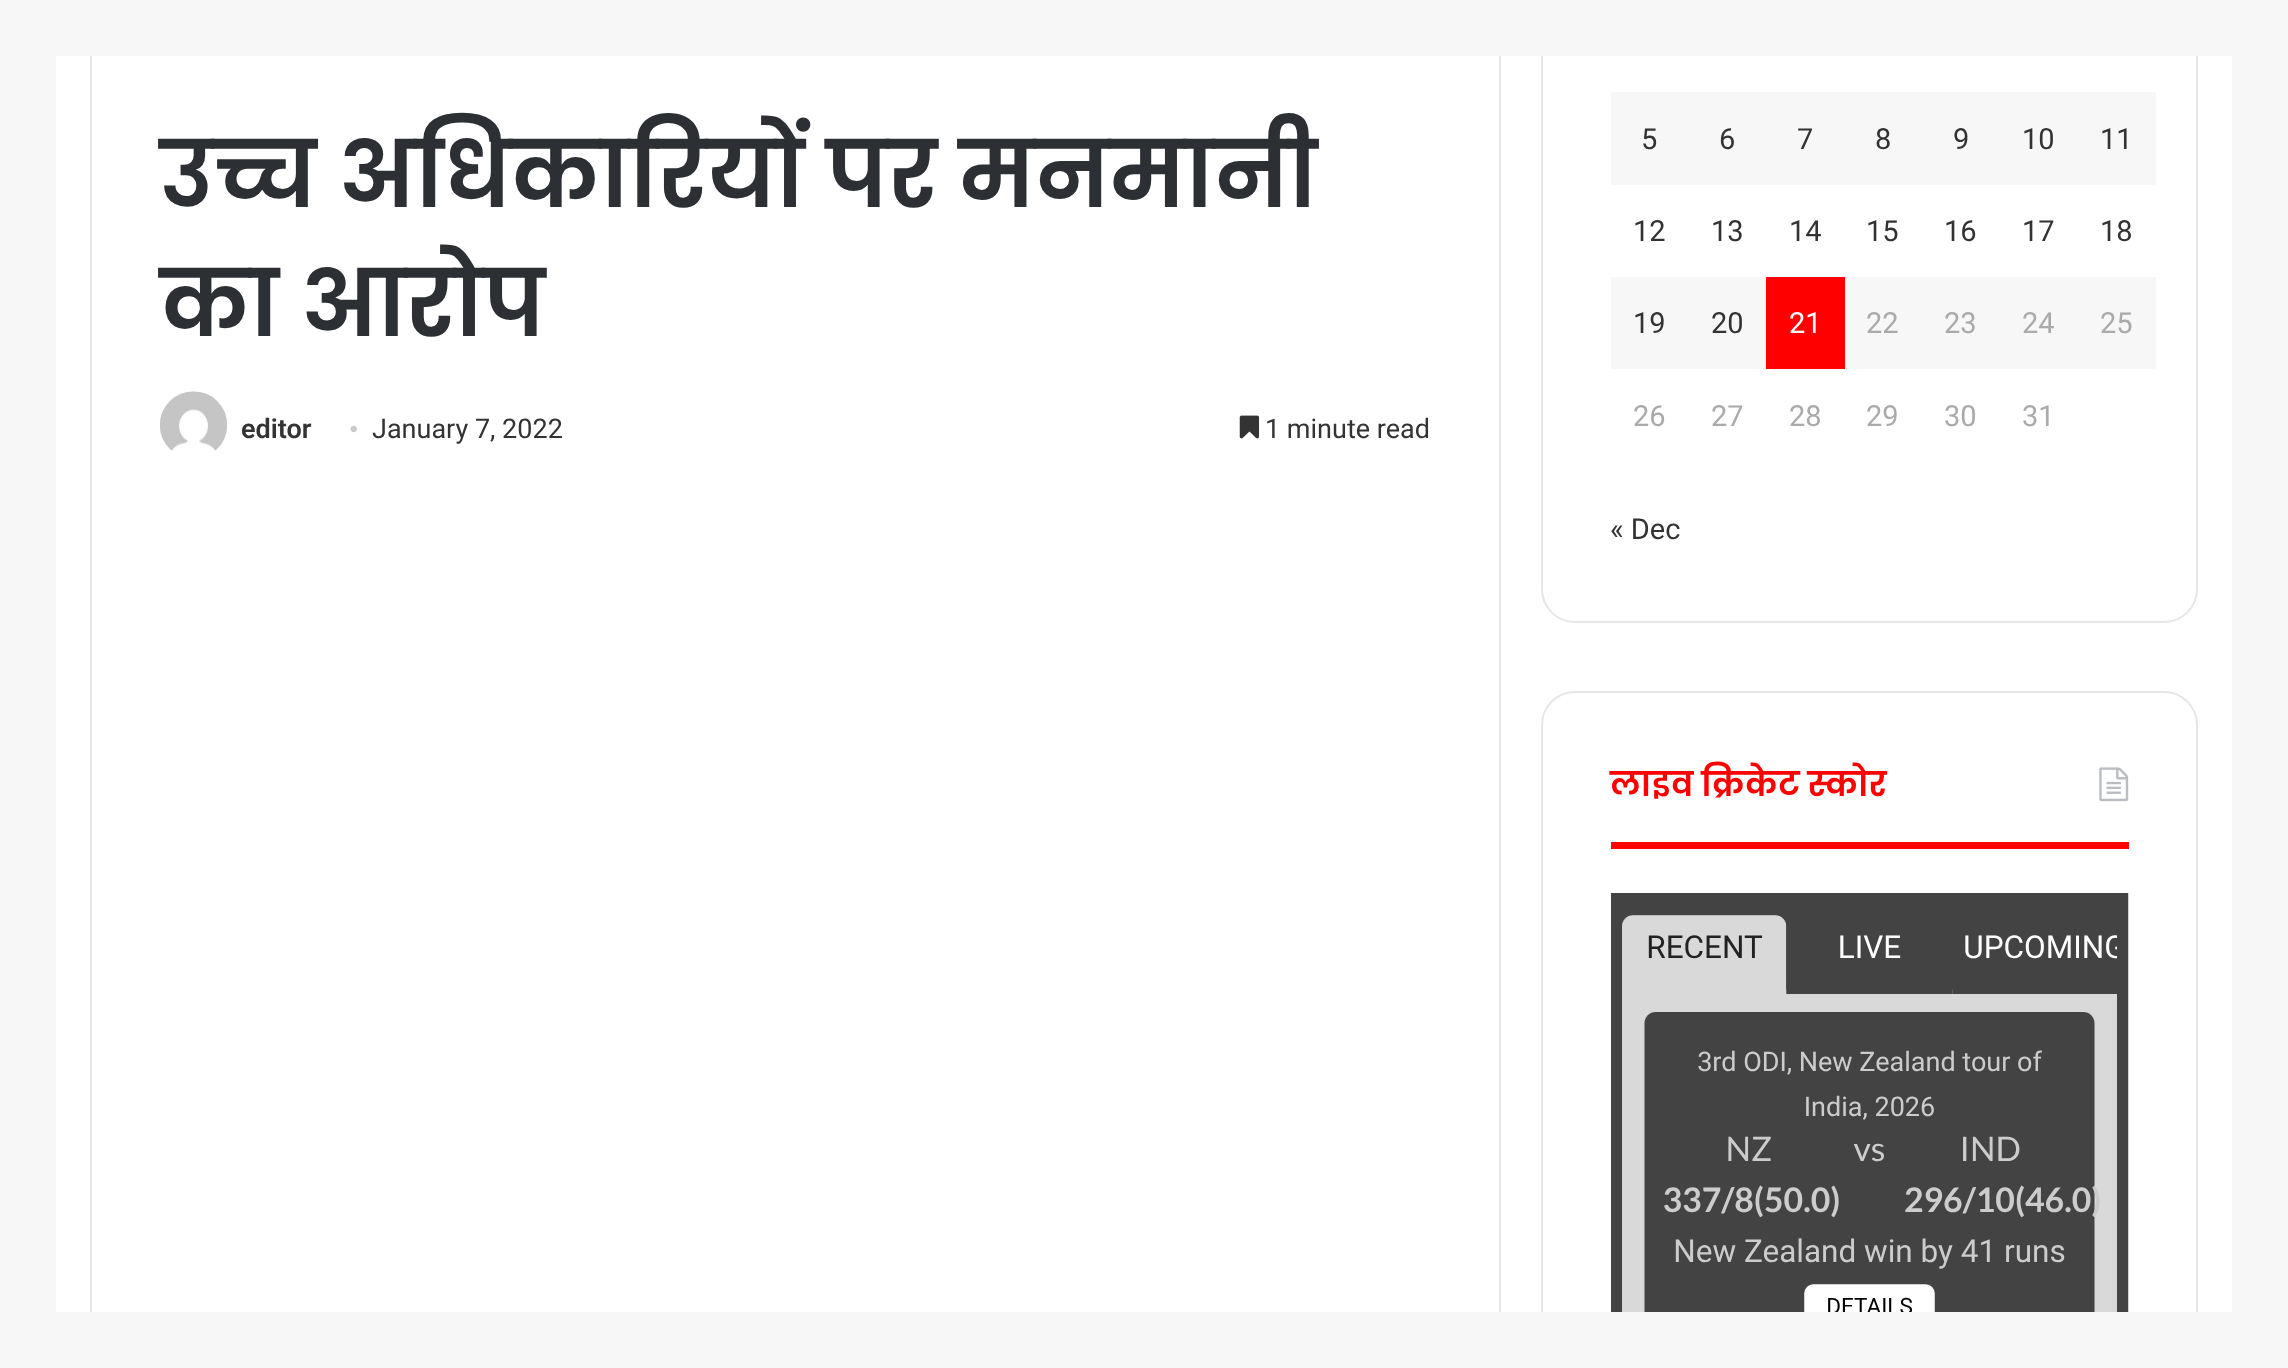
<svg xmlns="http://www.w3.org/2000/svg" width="2288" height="1368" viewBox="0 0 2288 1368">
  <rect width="100%" height="100%" fill="#f7f7f7"/>
  <rect x="56" y="56" width="2176" height="1256" fill="#ffffff"/>
  <rect x="91" y="-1" width="1409" height="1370" fill="none" stroke="#e6e6e6" stroke-width="2"/>
  <rect x="1542" y="-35" width="655" height="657" rx="33" fill="none" stroke="#e6e6e6" stroke-width="2"/>
  <rect x="90" y="0" width="2108" height="56" fill="#f7f7f7"/>
  <text x="160" y="207" font-family="Poppins" font-size="92.25" font-weight="600" fill="#2c2f34">उच्च अधिकारियों पर मनमानी</text>
  <text x="160" y="336" font-family="Poppins" font-size="92.25" font-weight="600" fill="#2c2f34">का आरोप</text>
  <image x="160" y="391" width="67" height="60" href="img1.png"/>
  <text x="241" y="438" font-family="Roboto" font-size="27" font-weight="600" fill="#333333">editor</text>
  <text x="349" y="438" font-family="Liberation Serif" font-size="27" fill="#cccccc">•</text>
  <text x="372" y="438" font-family="Roboto" font-size="27" fill="#333333">January 7, 2022</text>
  <image x="1239" y="415" width="21" height="24" href="img2.png"/>
  <text x="1265" y="438" font-family="Roboto" font-size="27" fill="#333333">1 minute read</text>
  <rect x="1611" y="92" width="545" height="93" fill="#f7f7f7"/>
  <text x="1641" y="149" font-family="Roboto" font-size="29" fill="#333333">5</text>
  <text x="1719" y="149" font-family="Roboto" font-size="29" fill="#333333">6</text>
  <text x="1797" y="149" font-family="Roboto" font-size="29" fill="#333333">7</text>
  <text x="1875" y="149" font-family="Roboto" font-size="29" fill="#333333">8</text>
  <text x="1953" y="149" font-family="Roboto" font-size="29" fill="#333333">9</text>
  <text x="2022" y="149" font-family="Roboto" font-size="29" fill="#333333">10</text>
  <text x="2100" y="149" font-family="Roboto" font-size="29" fill="#333333">11</text>
  <text x="1633" y="241" font-family="Roboto" font-size="29" fill="#333333">12</text>
  <text x="1711" y="241" font-family="Roboto" font-size="29" fill="#333333">13</text>
  <text x="1789" y="241" font-family="Roboto" font-size="29" fill="#333333">14</text>
  <text x="1866" y="241" font-family="Roboto" font-size="29" fill="#333333">15</text>
  <text x="1944" y="241" font-family="Roboto" font-size="29" fill="#333333">16</text>
  <text x="2022" y="241" font-family="Roboto" font-size="29" fill="#333333">17</text>
  <text x="2100" y="241" font-family="Roboto" font-size="29" fill="#333333">18</text>
  <rect x="1611" y="277" width="545" height="92" fill="#f7f7f7"/>
  <text x="1633" y="333" font-family="Roboto" font-size="29" fill="#333333">19</text>
  <text x="1711" y="333" font-family="Roboto" font-size="29" fill="#333333">20</text>
  <rect x="1766" y="277" width="79" height="92" fill="#ff0000"/>
  <text x="1789" y="333" font-family="Roboto" font-size="29" fill="#ffffff">21</text>
  <text x="1866" y="333" font-family="Roboto" font-size="29" fill="#aaaaaa">22</text>
  <text x="1944" y="333" font-family="Roboto" font-size="29" fill="#aaaaaa">23</text>
  <text x="2022" y="333" font-family="Roboto" font-size="29" fill="#aaaaaa">24</text>
  <text x="2100" y="333" font-family="Roboto" font-size="29" fill="#aaaaaa">25</text>
  <text x="1633" y="426" font-family="Roboto" font-size="29" fill="#aaaaaa">26</text>
  <text x="1711" y="426" font-family="Roboto" font-size="29" fill="#aaaaaa">27</text>
  <text x="1789" y="426" font-family="Roboto" font-size="29" fill="#aaaaaa">28</text>
  <text x="1866" y="426" font-family="Roboto" font-size="29" fill="#aaaaaa">29</text>
  <text x="1944" y="426" font-family="Roboto" font-size="29" fill="#aaaaaa">30</text>
  <text x="2022" y="426" font-family="Roboto" font-size="29" fill="#aaaaaa">31</text>
  <text x="1610" y="539" font-family="Roboto" font-size="29" fill="#333333">« Dec</text>
  <rect x="1542" y="692" width="655" height="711" rx="33" fill="none" stroke="#e6e6e6" stroke-width="2"/>
  <rect x="1611" y="842" width="518" height="7" fill="#ff0000"/>
  <text x="1610" y="796" font-family="Poppins" font-size="33.75" font-weight="600" fill="#ff0000">लाइव क्रिकेट स्कोर</text>
  <image x="2099" y="767" width="30" height="35" href="img3.png"/>
  <image x="1611" y="893" width="518" height="419" href="img4.png"/>
  <rect x="90" y="1312" width="2108" height="56" fill="#f7f7f7"/>
</svg>
